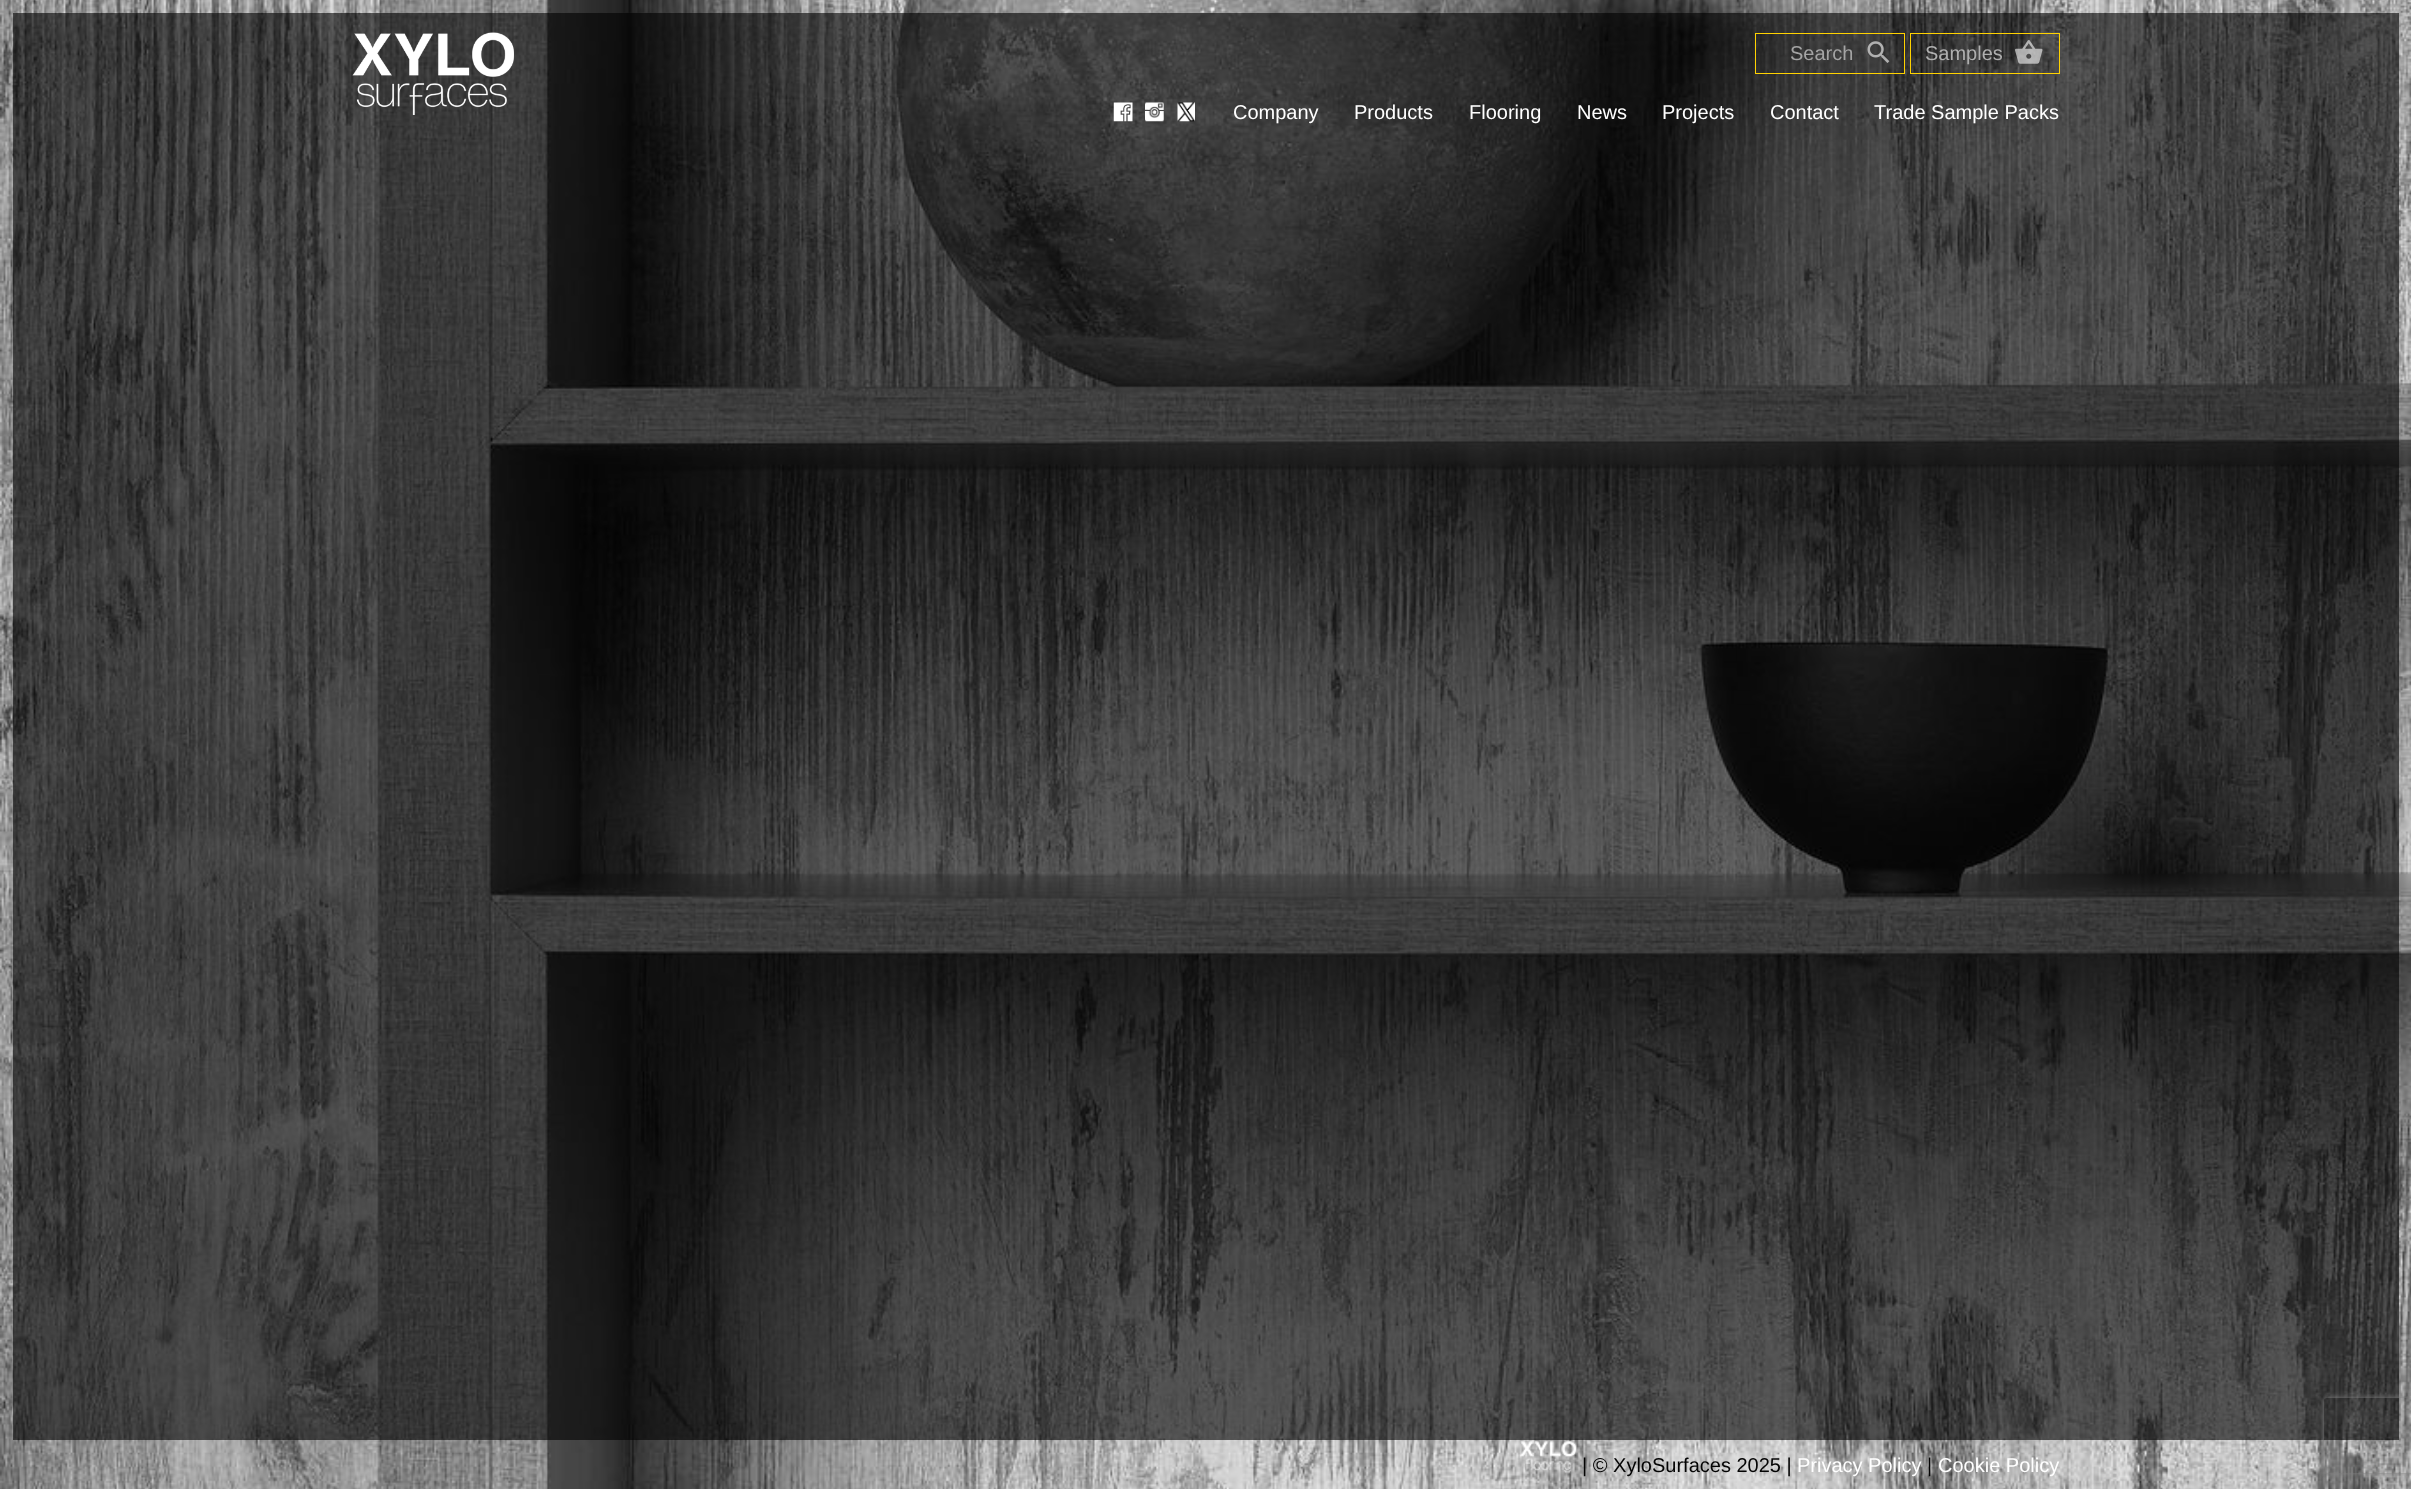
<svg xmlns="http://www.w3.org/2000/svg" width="2411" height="1489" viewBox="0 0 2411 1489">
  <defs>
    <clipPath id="clip1"><path d="M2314 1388H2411V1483H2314ZM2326.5 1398H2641.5C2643 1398 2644 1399 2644 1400.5V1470.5C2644 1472 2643 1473 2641.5 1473H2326.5C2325 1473 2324 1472 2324 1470.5V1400.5C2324 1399 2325 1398 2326.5 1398Z" clip-rule="evenodd"/></clipPath>
    <filter id="blur1" x="-50%" y="-200%" width="200%" height="500%"><feGaussianBlur stdDeviation="3"/></filter>
  </defs>
  <rect width="100%" height="100%" fill="#ffffff"/>
  <image x="0" y="0" width="2411" height="1489" href="img1.png"/>
  <image x="352" y="32" width="162" height="83" href="img2.png"/>
  <rect x="1755.5" y="33.5" width="149" height="40" fill="none" stroke="#ffd200"/>
  <text x="1790" y="60" font-family="Liberation Sans" font-size="20" fill="#a4a4a4">Search</text>
  <image x="1867" y="41" width="23" height="22" href="img3.png"/>
  <rect x="1910.5" y="33.5" width="149" height="40" fill="none" stroke="#ffd200"/>
  <text x="1925" y="60" font-family="Liberation Sans" font-size="20" fill="#afafaf">Samples</text>
  <image x="2015" y="40" width="28" height="24" href="img4.png"/>
  <image x="1113" y="102" width="20" height="20" href="img5.png"/>
  <image x="1145" y="102" width="19" height="20" href="img6.png"/>
  <image x="1177" y="102" width="18" height="20" href="img7.png"/>
  <text x="1233" y="119" font-family="Liberation Sans" font-size="20" fill="#ffffff">Company</text>
  <text x="1354" y="119" font-family="Liberation Sans" font-size="20" fill="#ffffff">Products</text>
  <text x="1469" y="119" font-family="Liberation Sans" font-size="20" fill="#ffffff">Flooring</text>
  <text x="1577" y="119" font-family="Liberation Sans" font-size="20" fill="#ffffff">News</text>
  <text x="1662" y="119" font-family="Liberation Sans" font-size="20" fill="#ffffff">Projects</text>
  <text x="1770" y="119" font-family="Liberation Sans" font-size="20" fill="#ffffff">Contact</text>
  <text x="1874" y="119" font-family="Liberation Sans" font-size="20" fill="#ffffff">Trade Sample Packs</text>
  <image x="1520" y="1441" width="57" height="32" href="img8.png"/>
  <text x="1582" y="1472" font-family="Liberation Sans" font-size="20" fill="#040404">| © XyloSurfaces 2025 |</text>
  <text x="1797" y="1472" font-family="Liberation Sans" font-size="20" fill="#ffffff">Privacy Policy</text>
  <text x="1927" y="1472" font-family="Liberation Sans" font-size="20" fill="#040404">|</text>
  <text x="1938" y="1472" font-family="Liberation Sans" font-size="20" fill="#ffffff">Cookie Policy</text>
  <g clip-path="url(#clip1)">
    <rect x="2324" y="1398" width="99" height="75" rx="2.5" fill="#808080" filter="url(#blur1)"/>
  </g>
</svg>
